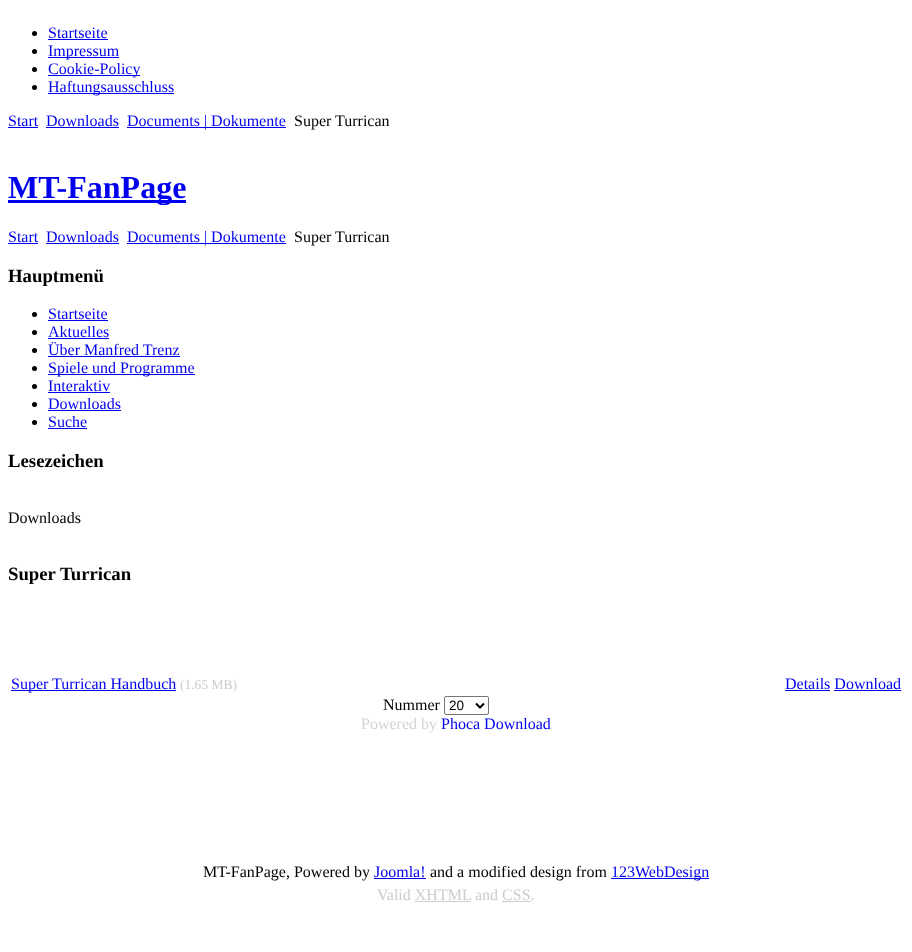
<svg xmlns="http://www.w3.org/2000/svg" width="912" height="952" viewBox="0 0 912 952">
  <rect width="100%" height="100%" fill="#ffffff"/>
  <circle cx="34.5" cy="33.5" r="2.5" fill="#000000"/>
  <text x="48" y="38" font-family="Liberation Serif" font-size="16" fill="#0000ee">Startseite</text>
  <rect x="48" y="39" width="60" height="1" fill="#0000ee"/>
  <circle cx="34.5" cy="51.5" r="2.5" fill="#000000"/>
  <rect x="48" y="57" width="71" height="1" fill="#0000ee"/>
  <text x="48" y="56" font-family="Liberation Serif" font-size="16" fill="#0000ee">Impressum</text>
  <circle cx="34.5" cy="69.5" r="2.5" fill="#000000"/>
  <rect x="48" y="75" width="92" height="1" fill="#0000ee"/>
  <text x="48" y="74" font-family="Liberation Serif" font-size="16" fill="#0000ee">Cookie-Policy</text>
  <circle cx="34.5" cy="87.5" r="2.5" fill="#000000"/>
  <rect x="48" y="93" width="126" height="1" fill="#0000ee"/>
  <text x="48" y="92" font-family="Liberation Serif" font-size="16" fill="#0000ee">Haftungsausschluss</text>
  <text x="8" y="126" font-family="Liberation Serif" font-size="16" fill="#0000ee">Start</text>
  <rect x="8" y="127" width="30" height="1" fill="#0000ee"/>
  <text x="46" y="126" font-family="Liberation Serif" font-size="16" fill="#0000ee">Downloads</text>
  <rect x="46" y="127" width="73" height="1" fill="#0000ee"/>
  <rect x="127" y="127" width="159" height="1" fill="#0000ee"/>
  <text x="127" y="126" font-family="Liberation Serif" font-size="16" fill="#0000ee">Documents | Dokumente</text>
  <text x="294" y="126" font-family="Liberation Serif" font-size="16" fill="#000000">Super Turrican</text>
  <rect x="8" y="200" width="178" height="3" fill="#0000ee"/>
  <text x="8" y="198" font-family="Liberation Serif" font-size="32" font-weight="bold" fill="#0000ee">MT-FanPage</text>
  <text x="8" y="242" font-family="Liberation Serif" font-size="16" fill="#0000ee">Start</text>
  <rect x="8" y="243" width="30" height="1" fill="#0000ee"/>
  <text x="46" y="242" font-family="Liberation Serif" font-size="16" fill="#0000ee">Downloads</text>
  <rect x="46" y="243" width="73" height="1" fill="#0000ee"/>
  <rect x="127" y="243" width="159" height="1" fill="#0000ee"/>
  <text x="127" y="242" font-family="Liberation Serif" font-size="16" fill="#0000ee">Documents | Dokumente</text>
  <text x="294" y="242" font-family="Liberation Serif" font-size="16" fill="#000000">Super Turrican</text>
  <text x="8" y="282" font-family="Liberation Serif" font-size="18.75" font-weight="bold" fill="#000000">Hauptmenü</text>
  <circle cx="34.5" cy="314.5" r="2.5" fill="#000000"/>
  <text x="48" y="319" font-family="Liberation Serif" font-size="16" fill="#0000ee">Startseite</text>
  <rect x="48" y="320" width="60" height="1" fill="#0000ee"/>
  <circle cx="34.5" cy="332.5" r="2.5" fill="#000000"/>
  <text x="48" y="337" font-family="Liberation Serif" font-size="16" fill="#0000ee">Aktuelles</text>
  <rect x="48" y="338" width="61" height="1" fill="#0000ee"/>
  <circle cx="34.5" cy="350.5" r="2.5" fill="#000000"/>
  <text x="48" y="355" font-family="Liberation Serif" font-size="16" fill="#0000ee">Über Manfred Trenz</text>
  <rect x="48" y="356" width="132" height="1" fill="#0000ee"/>
  <circle cx="34.5" cy="368.5" r="2.5" fill="#000000"/>
  <rect x="48" y="374" width="147" height="1" fill="#0000ee"/>
  <text x="48" y="373" font-family="Liberation Serif" font-size="16" fill="#0000ee">Spiele und Programme</text>
  <circle cx="34.5" cy="386.5" r="2.5" fill="#000000"/>
  <text x="48" y="391" font-family="Liberation Serif" font-size="16" fill="#0000ee">Interaktiv</text>
  <rect x="48" y="392" width="62" height="1" fill="#0000ee"/>
  <circle cx="34.5" cy="404.5" r="2.5" fill="#000000"/>
  <text x="48" y="409" font-family="Liberation Serif" font-size="16" fill="#0000ee">Downloads</text>
  <rect x="48" y="410" width="73" height="1" fill="#0000ee"/>
  <circle cx="34.5" cy="422.5" r="2.5" fill="#000000"/>
  <text x="48" y="427" font-family="Liberation Serif" font-size="16" fill="#0000ee">Suche</text>
  <rect x="48" y="428" width="39" height="1" fill="#0000ee"/>
  <text x="8" y="467" font-family="Liberation Serif" font-size="18.75" font-weight="bold" fill="#000000">Lesezeichen</text>
  <text x="8" y="523" font-family="Liberation Serif" font-size="16" fill="#000000">Downloads</text>
  <text x="8" y="580" font-family="Liberation Serif" font-size="18.75" font-weight="bold" fill="#000000">Super Turrican</text>
  <rect x="11" y="690" width="165" height="1" fill="#0000ee"/>
  <text x="11" y="689" font-family="Liberation Serif" font-size="16" fill="#0000ee">Super Turrican Handbuch</text>
  <text x="180" y="689" font-family="Liberation Serif" font-size="13.5" fill="#cccccc">(1.65 MB)</text>
  <text x="785" y="689" font-family="Liberation Serif" font-size="16" fill="#0000ee">Details Download</text>
  <rect x="785" y="690" width="45" height="1" fill="#0000ee"/>
  <rect x="834" y="690" width="67" height="1" fill="#0000ee"/>
  <text x="383" y="710" font-family="Liberation Serif" font-size="16" fill="#000000">Nummer</text>
  <rect x="444.5" y="696.5" width="44" height="18" rx="1.5" fill="none" stroke="#767676"/>
  <path d="M476 703.5L480 707.5L484 703.5" fill="none" stroke="#000000" stroke-width="2"/>
  <text x="449" y="710" font-family="Liberation Sans" font-size="13.5" fill="#000000">20</text>
  <text x="361" y="729" font-family="Liberation Serif" font-size="16" fill="#d3d3d3">Powered by</text>
  <text x="441" y="729" font-family="Liberation Serif" font-size="16" fill="#0000ee">Phoca Download</text>
  <text x="203" y="877" font-family="Liberation Serif" font-size="16" fill="#000000">MT-FanPage, Powered by</text>
  <text x="374" y="877" font-family="Liberation Serif" font-size="16" fill="#0000ee">Joomla!</text>
  <rect x="374" y="878" width="52" height="1" fill="#0000ee"/>
  <text x="430" y="877" font-family="Liberation Serif" font-size="16" fill="#000000">and a modified design from</text>
  <rect x="611" y="878" width="98" height="1" fill="#0000ee"/>
  <text x="611" y="877" font-family="Liberation Serif" font-size="16" fill="#0000ee">123WebDesign</text>
  <text x="377" y="900" font-family="Liberation Serif" font-size="16" fill="#cccccc">Valid XHTML</text>
  <text x="475" y="900" font-family="Liberation Serif" font-size="16" fill="#cccccc">and CSS.</text>
  <rect x="415" y="901" width="56" height="1" fill="#cccccc"/>
  <rect x="502" y="901" width="29" height="1" fill="#cccccc"/>
</svg>
